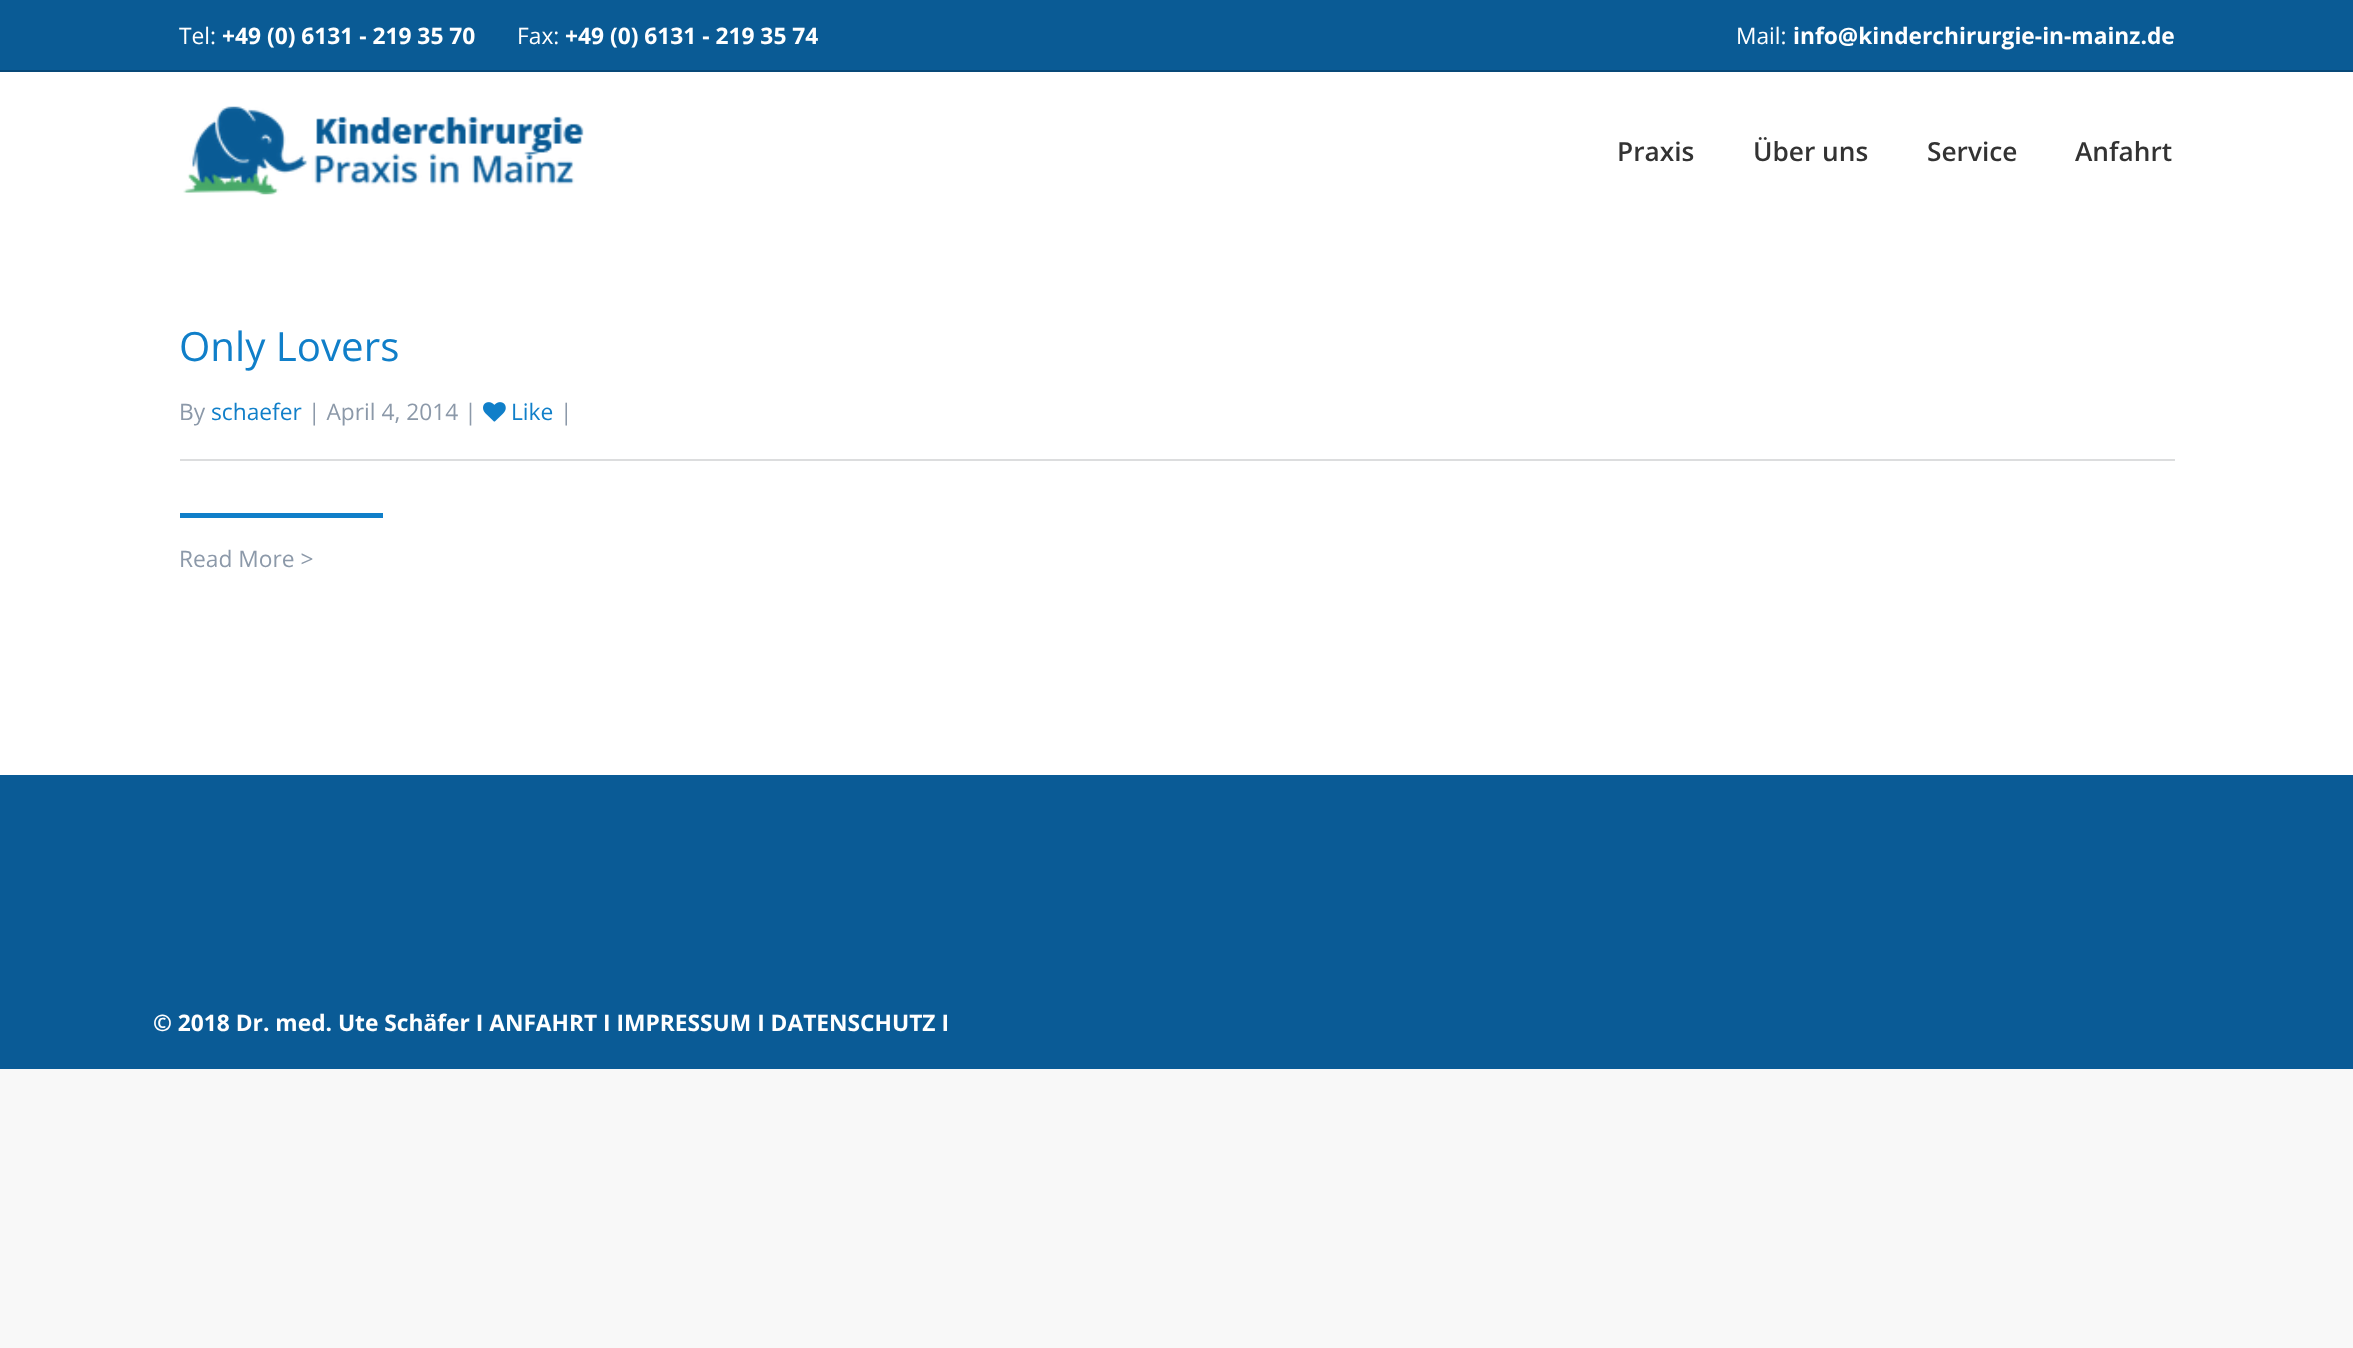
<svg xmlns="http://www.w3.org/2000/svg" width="2353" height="1348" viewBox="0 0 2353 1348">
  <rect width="100%" height="100%" fill="#f8f8f8"/>
  <rect x="0" y="72" width="2353" height="703" fill="#ffffff"/>
  <rect x="0" y="0" width="2353" height="70" fill="#0a5b95"/>
  <rect x="0" y="70" width="2353" height="2" fill="#084978"/>
  <text x="179" y="44" font-family="Open Sans" font-size="22.75" fill="#ffffff">Tel:</text>
  <text x="222" y="44" font-family="Open Sans" font-size="22.75" font-weight="bold" fill="#ffffff">+49 (0) 6131 - 219 35 70</text>
  <text x="517" y="44" font-family="Open Sans" font-size="22.75" fill="#ffffff">Fax:</text>
  <text x="565" y="44" font-family="Open Sans" font-size="22.75" font-weight="bold" fill="#ffffff">+49 (0) 6131 - 219 35 74</text>
  <text x="1736" y="44" font-family="Open Sans" font-size="22.75" fill="#ffffff">Mail:</text>
  <text x="1793" y="44" font-family="Open Sans" font-size="22.75" font-weight="bold" fill="#ffffff">info@kinderchirurgie-in-mainz.de</text>
  <image x="183" y="106" width="401" height="89" href="img1.png"/>
  <text x="1617" y="161" font-family="Open Sans" font-size="26.25" font-weight="600" fill="#333333">Praxis</text>
  <text x="1753" y="161" font-family="Open Sans" font-size="26.25" font-weight="600" fill="#333333">Über uns</text>
  <text x="1927" y="161" font-family="Open Sans" font-size="26.25" font-weight="600" fill="#333333">Service</text>
  <text x="2075" y="161" font-family="Open Sans" font-size="26.25" font-weight="600" fill="#333333">Anfahrt</text>
  <text x="179" y="361" font-family="Open Sans" font-size="40.25" fill="#107fc9">Only Lovers</text>
  <rect x="180" y="459" width="1995" height="2" fill="#dcddde"/>
  <text x="179" y="420" font-family="Open Sans" font-size="22.75" fill="#8c99a9">By</text>
  <text x="211" y="420" font-family="Open Sans" font-size="22.75" fill="#107fc9">schaefer</text>
  <text x="308" y="420" font-family="Open Sans" font-size="22.75" fill="#8c99a9">| April 4, 2014 |</text>
  <image x="483" y="402" width="23" height="20" href="img2.png"/>
  <text x="511" y="420" font-family="Open Sans" font-size="22.75" fill="#107fc9">Like</text>
  <text x="560" y="420" font-family="Open Sans" font-size="22.75" fill="#8c99a9">|</text>
  <rect x="180" y="513" width="203" height="5" fill="#107fc9"/>
  <text x="179" y="567" font-family="Open Sans" font-size="22.75" fill="#8c99a9">Read More &gt;</text>
  <rect x="0" y="775" width="2353" height="294" fill="#0a5b96"/>
  <text x="153" y="1031" font-family="Open Sans" font-size="22.75" font-weight="bold" fill="#ffffff">© 2018 Dr. med. Ute Schäfer I ANFAHRT I IMPRESSUM I DATENSCHUTZ I</text>
</svg>
